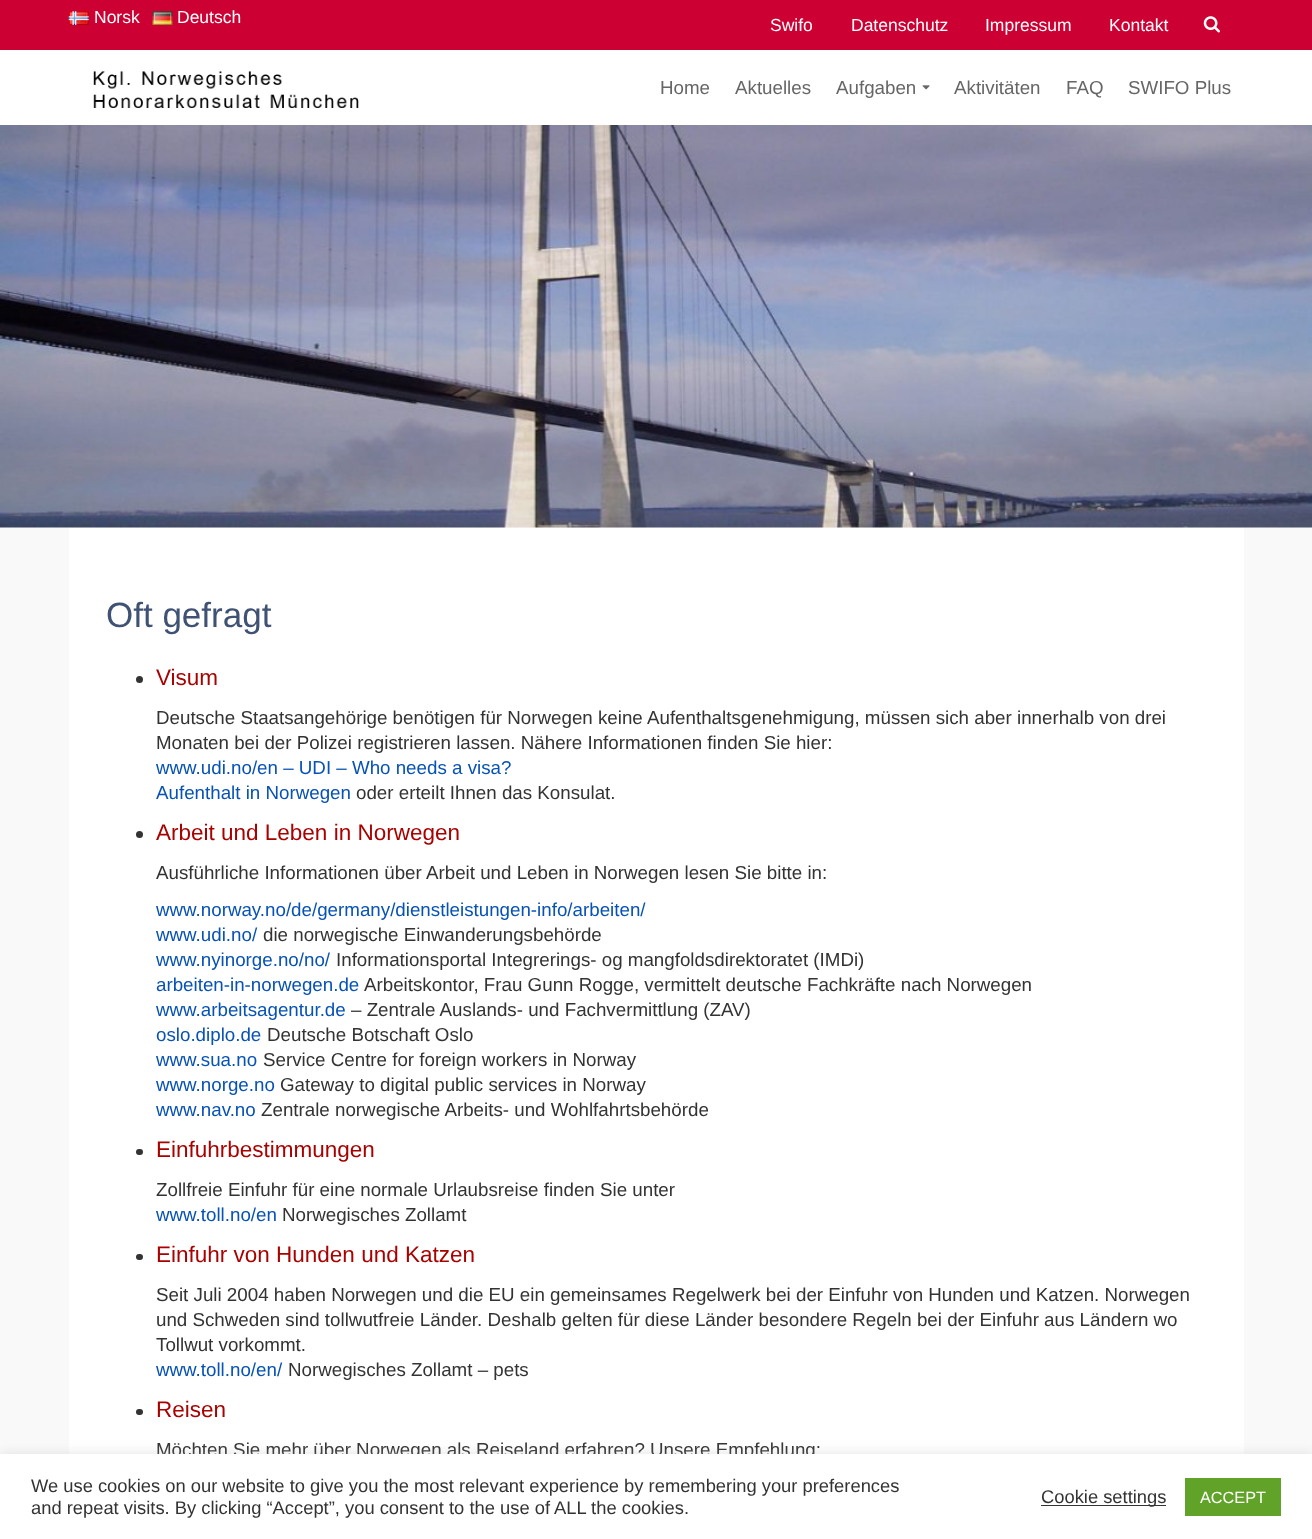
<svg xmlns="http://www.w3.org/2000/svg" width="1312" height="1539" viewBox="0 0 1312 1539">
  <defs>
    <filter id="blur1" x="-50%" y="-200%" width="200%" height="500%"><feGaussianBlur stdDeviation="6"/></filter>
  </defs>
  <rect width="100%" height="100%" fill="#ffffff"/>
  <rect x="0" y="0" width="1312" height="50" fill="#cc0033"/>
  <image x="68" y="11" width="21" height="14" href="img1.png"/>
  <text x="94" y="23" font-family="Liberation Sans" font-size="17.5" fill="#ffffff">Norsk</text>
  <image x="152" y="11" width="21" height="14" href="img2.png"/>
  <text x="177" y="23" font-family="Liberation Sans" font-size="17.5" fill="#ffffff">Deutsch</text>
  <text x="770" y="31" font-family="Liberation Sans" font-size="17.5" fill="#ffffff">Swifo</text>
  <text x="851" y="31" font-family="Liberation Sans" font-size="17.5" fill="#ffffff">Datenschutz</text>
  <text x="985" y="31" font-family="Liberation Sans" font-size="17.5" fill="#ffffff">Impressum</text>
  <text x="1109" y="31" font-family="Liberation Sans" font-size="17.5" fill="#ffffff">Kontakt</text>
  <image x="1203" y="16" width="17" height="17" href="img3.png"/>
  <image x="93" y="71" width="266" height="37" href="img4.png"/>
  <text x="660" y="94" font-family="Liberation Sans" font-size="18.75" fill="#666666">Home</text>
  <text x="735" y="94" font-family="Liberation Sans" font-size="18.75" fill="#666666">Aktuelles</text>
  <text x="836" y="94" font-family="Liberation Sans" font-size="18.75" fill="#666666">Aufgaben</text>
  <image x="922" y="85" width="8" height="5" href="img5.png"/>
  <text x="954" y="94" font-family="Liberation Sans" font-size="18.75" fill="#666666">Aktivitäten</text>
  <text x="1066" y="94" font-family="Liberation Sans" font-size="18.75" fill="#666666">FAQ</text>
  <text x="1128" y="94" font-family="Liberation Sans" font-size="18.75" fill="#666666">SWIFO Plus</text>
  <rect x="0" y="527" width="1312" height="927" fill="#f9f9f9"/>
  <image x="0" y="125" width="1312" height="403" href="img6.png"/>
  <rect x="69" y="528" width="1175" height="926" fill="#ffffff"/>
  <text x="106" y="627" font-family="Liberation Sans" font-size="35" fill="#3f5274">Oft gefragt</text>
  <circle cx="139.5" cy="679.5" r="3.5" fill="#333333"/>
  <text x="156" y="685" font-family="Liberation Sans" font-size="22.5" fill="#a90000">Visum</text>
  <text x="156" y="724" font-family="Liberation Sans" font-size="18.75" fill="#333333">Deutsche Staatsangehörige benötigen für Norwegen keine Aufenthaltsgenehmigung, müssen sich aber innerhalb von drei</text>
  <text x="156" y="749" font-family="Liberation Sans" font-size="18.75" fill="#333333">Monaten bei der Polizei registrieren lassen. Nähere Informationen finden Sie hier:</text>
  <text x="156" y="774" font-family="Liberation Sans" font-size="18.75" fill="#0752b5">www.udi.no/en – UDI – Who needs a visa?</text>
  <text x="156" y="799" font-family="Liberation Sans" font-size="18.75" fill="#0752b5">Aufenthalt in Norwegen</text>
  <text x="356" y="799" font-family="Liberation Sans" font-size="18.75" fill="#333333">oder erteilt Ihnen das Konsulat.</text>
  <circle cx="139.5" cy="834.5" r="3.5" fill="#333333"/>
  <text x="156" y="840" font-family="Liberation Sans" font-size="22.5" fill="#a90000">Arbeit und Leben in Norwegen</text>
  <text x="156" y="879" font-family="Liberation Sans" font-size="18.75" fill="#333333">Ausführliche Informationen über Arbeit und Leben in Norwegen lesen Sie bitte in:</text>
  <text x="156" y="916" font-family="Liberation Sans" font-size="18.75" fill="#0752b5">www.norway.no/de/germany/dienstleistungen-info/arbeiten/</text>
  <text x="156" y="941" font-family="Liberation Sans" font-size="18.75" fill="#0752b5">www.udi.no/</text>
  <text x="263" y="941" font-family="Liberation Sans" font-size="18.75" fill="#333333">die norwegische Einwanderungsbehörde</text>
  <text x="156" y="966" font-family="Liberation Sans" font-size="18.75" fill="#0752b5">www.nyinorge.no/no/</text>
  <text x="336" y="966" font-family="Liberation Sans" font-size="18.75" fill="#333333">Informationsportal Integrerings- og mangfoldsdirektoratet (IMDi)</text>
  <text x="156" y="991" font-family="Liberation Sans" font-size="18.75" fill="#0752b5">arbeiten-in-norwegen.de</text>
  <text x="364" y="991" font-family="Liberation Sans" font-size="18.75" fill="#333333">Arbeitskontor, Frau Gunn Rogge, vermittelt deutsche Fachkräfte nach Norwegen</text>
  <text x="156" y="1016" font-family="Liberation Sans" font-size="18.75" fill="#0752b5">www.arbeitsagentur.de</text>
  <text x="351" y="1016" font-family="Liberation Sans" font-size="18.75" fill="#333333">– Zentrale Auslands- und Fachvermittlung (ZAV)</text>
  <text x="156" y="1041" font-family="Liberation Sans" font-size="18.75" fill="#0752b5">oslo.diplo.de</text>
  <text x="267" y="1041" font-family="Liberation Sans" font-size="18.75" fill="#333333">Deutsche Botschaft Oslo</text>
  <text x="156" y="1066" font-family="Liberation Sans" font-size="18.75" fill="#0752b5">www.sua.no</text>
  <text x="263" y="1066" font-family="Liberation Sans" font-size="18.75" fill="#333333">Service Centre for foreign workers in Norway</text>
  <text x="156" y="1091" font-family="Liberation Sans" font-size="18.75" fill="#0752b5">www.norge.no</text>
  <text x="280" y="1091" font-family="Liberation Sans" font-size="18.75" fill="#333333">Gateway to digital public services in Norway</text>
  <text x="156" y="1116" font-family="Liberation Sans" font-size="18.75" fill="#0752b5">www.nav.no</text>
  <text x="261" y="1116" font-family="Liberation Sans" font-size="18.75" fill="#333333">Zentrale norwegische Arbeits- und Wohlfahrtsbehörde</text>
  <rect x="136" y="1149" width="7" height="6" rx="3" fill="#333333"/>
  <text x="156" y="1157" font-family="Liberation Sans" font-size="22.5" fill="#a90000">Einfuhrbestimmungen</text>
  <text x="156" y="1196" font-family="Liberation Sans" font-size="18.75" fill="#333333">Zollfreie Einfuhr für eine normale Urlaubsreise finden Sie unter</text>
  <text x="156" y="1221" font-family="Liberation Sans" font-size="18.75" fill="#0752b5">www.toll.no/en</text>
  <text x="282" y="1221" font-family="Liberation Sans" font-size="18.75" fill="#333333">Norwegisches Zollamt</text>
  <rect x="136" y="1254" width="7" height="6" rx="3" fill="#333333"/>
  <text x="156" y="1262" font-family="Liberation Sans" font-size="22.5" fill="#a90000">Einfuhr von Hunden und Katzen</text>
  <text x="156" y="1301" font-family="Liberation Sans" font-size="18.75" fill="#333333">Seit Juli 2004 haben Norwegen und die EU ein gemeinsames Regelwerk bei der Einfuhr von Hunden und Katzen. Norwegen</text>
  <text x="156" y="1326" font-family="Liberation Sans" font-size="18.75" fill="#333333">und Schweden sind tollwutfreie Länder. Deshalb gelten für diese Länder besondere Regeln bei der Einfuhr aus Ländern wo</text>
  <text x="156" y="1351" font-family="Liberation Sans" font-size="18.75" fill="#333333">Tollwut vorkommt.</text>
  <text x="156" y="1376" font-family="Liberation Sans" font-size="18.75" fill="#0752b5">www.toll.no/en/</text>
  <text x="288" y="1376" font-family="Liberation Sans" font-size="18.75" fill="#333333">Norwegisches Zollamt – pets</text>
  <rect x="136" y="1409" width="7" height="6" rx="3" fill="#333333"/>
  <text x="156" y="1417" font-family="Liberation Sans" font-size="22.5" fill="#a90000">Reisen</text>
  <text x="156" y="1456" font-family="Liberation Sans" font-size="18.75" fill="#333333">Möchten Sie mehr über Norwegen als Reiseland erfahren? Unsere Empfehlung:</text>
  <rect x="0" y="1453" width="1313" height="86" fill="#acabab" fill-opacity="0.3" filter="url(#blur1)"/>
  <rect x="0" y="1454" width="1312" height="85" fill="#ffffff"/>
  <text x="31" y="1492" font-family="Liberation Sans" font-size="18.35" fill="#333333">We use cookies on our website to give you the most relevant experience by remembering your preferences</text>
  <text x="31" y="1514" font-family="Liberation Sans" font-size="18.35" fill="#333333">and repeat visits. By clicking “Accept”, you consent to the use of ALL the cookies.</text>
  <rect x="1041" y="1505" width="125" height="1" fill="#333333"/>
  <text x="1041" y="1503" font-family="Liberation Sans" font-size="18.35" fill="#333333">Cookie settings</text>
  <rect x="1185" y="1478" width="96" height="38" fill="#61a229"/>
  <text x="1200" y="1503" font-family="Liberation Sans" font-size="16.25" fill="#ffffff">ACCEPT</text>
</svg>
